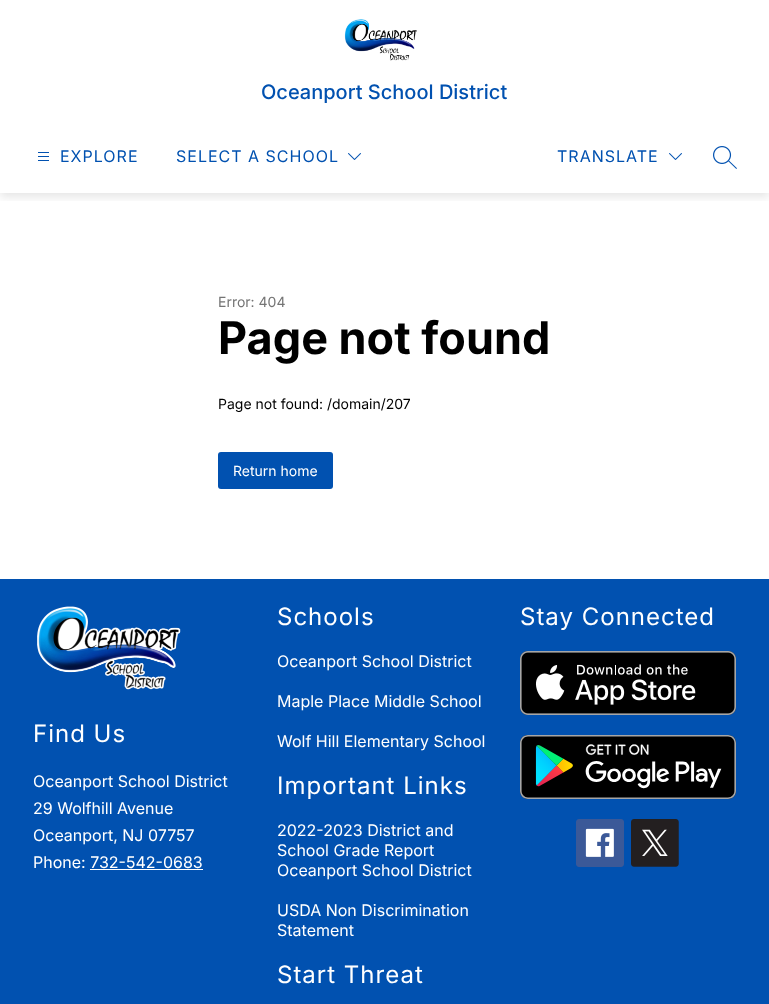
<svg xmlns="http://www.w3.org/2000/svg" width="769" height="1004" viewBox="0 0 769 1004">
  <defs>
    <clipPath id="clip1"><rect x="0" y="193" width="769" height="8"/></clipPath>
    <filter id="blur1" x="-50%" y="-200%" width="200%" height="500%"><feGaussianBlur stdDeviation="5"/></filter>
  </defs>
  <rect width="100%" height="100%" fill="#ffffff"/>
  <g clip-path="url(#clip1)">
    <rect x="0" y="4" width="769" height="193" fill="#000000" fill-opacity="0.1" filter="url(#blur1)"/>
  </g>
  <image x="344" y="19" width="73" height="42" href="img1.png"/>
  <text x="261" y="99" font-family="Inter" font-size="20" font-weight="500" fill="#0151b0">Oceanport School District</text>
  <image x="38" y="152" width="11" height="9" href="img2.png"/>
  <text x="60" y="162" font-family="Inter" font-size="16" letter-spacing="1" fill="#0151b0">EXPLORE</text>
  <text x="176" y="162" font-family="Inter" font-size="16" letter-spacing="1" fill="#0151b0">SELECT A SCHOOL</text>
  <image x="348" y="153" width="13" height="7" href="img3.png"/>
  <text x="557" y="162" font-family="Inter" font-size="16" letter-spacing="1" fill="#0151b0">TRANSLATE</text>
  <image x="669" y="153" width="13" height="7" href="img3.png"/>
  <image x="713" y="146" width="24" height="23" href="img4.png"/>
  <text x="218" y="307" font-family="Inter" font-size="14" fill="#747474">Error: 404</text>
  <text x="218" y="354" font-family="Inter" font-size="45" font-weight="bold" fill="#000000">Page not found</text>
  <text x="218" y="409" font-family="Inter" font-size="14" fill="#000000">Page not found: /domain/207</text>
  <rect x="218" y="452" width="115" height="37" rx="3" fill="#0151b0"/>
  <text x="233" y="476" font-family="Inter" font-size="14" fill="#ffffff">Return home</text>
  <rect x="0" y="579" width="769" height="425" fill="#0151b0"/>
  <text x="277" y="625" font-family="Inter" font-size="24" letter-spacing="1" fill="#ffffff">Schools</text>
  <text x="277" y="667" font-family="Inter" font-size="16" fill="#ffffff">Oceanport School District</text>
  <text x="277" y="707" font-family="Inter" font-size="16" fill="#ffffff">Maple Place Middle School</text>
  <text x="277" y="747" font-family="Inter" font-size="16" fill="#ffffff">Wolf Hill Elementary School</text>
  <text x="277" y="794" font-family="Inter" font-size="24" letter-spacing="1" fill="#ffffff">Important Links</text>
  <text x="277" y="836" font-family="Inter" font-size="16" fill="#ffffff">2022-2023 District and</text>
  <text x="277" y="856" font-family="Inter" font-size="16" fill="#ffffff">School Grade Report</text>
  <text x="277" y="876" font-family="Inter" font-size="16" fill="#ffffff">Oceanport School District</text>
  <text x="277" y="916" font-family="Inter" font-size="16" fill="#ffffff">USDA Non Discrimination</text>
  <text x="277" y="936" font-family="Inter" font-size="16" fill="#ffffff">Statement</text>
  <text x="277" y="983" font-family="Inter" font-size="24" letter-spacing="1" fill="#ffffff">Start Threat</text>
  <text x="520" y="625" font-family="Inter" font-size="24" letter-spacing="1" fill="#ffffff">Stay Connected</text>
  <image x="520" y="651" width="216" height="64" href="img5.png"/>
  <image x="520" y="735" width="216" height="64" href="img6.png"/>
  <image x="576" y="819" width="48" height="48" href="img7.png"/>
  <image x="631" y="819" width="48" height="48" href="img8.png"/>
  <image x="37" y="606" width="144" height="84" href="img9.png"/>
  <text x="33" y="742" font-family="Inter" font-size="24" letter-spacing="1" fill="#ffffff">Find Us</text>
  <text x="33" y="787" font-family="Inter" font-size="16" fill="#ffffff">Oceanport School District</text>
  <text x="33" y="814" font-family="Inter" font-size="16" fill="#ffffff">29 Wolfhill Avenue</text>
  <text x="33" y="841" font-family="Inter" font-size="16" fill="#ffffff">Oceanport, NJ 07757</text>
  <text x="33" y="868" font-family="Inter" font-size="16" fill="#ffffff">Phone: 732-542-0683</text>
  <rect x="90" y="869" width="113" height="1" fill="#ffffff"/>
</svg>
